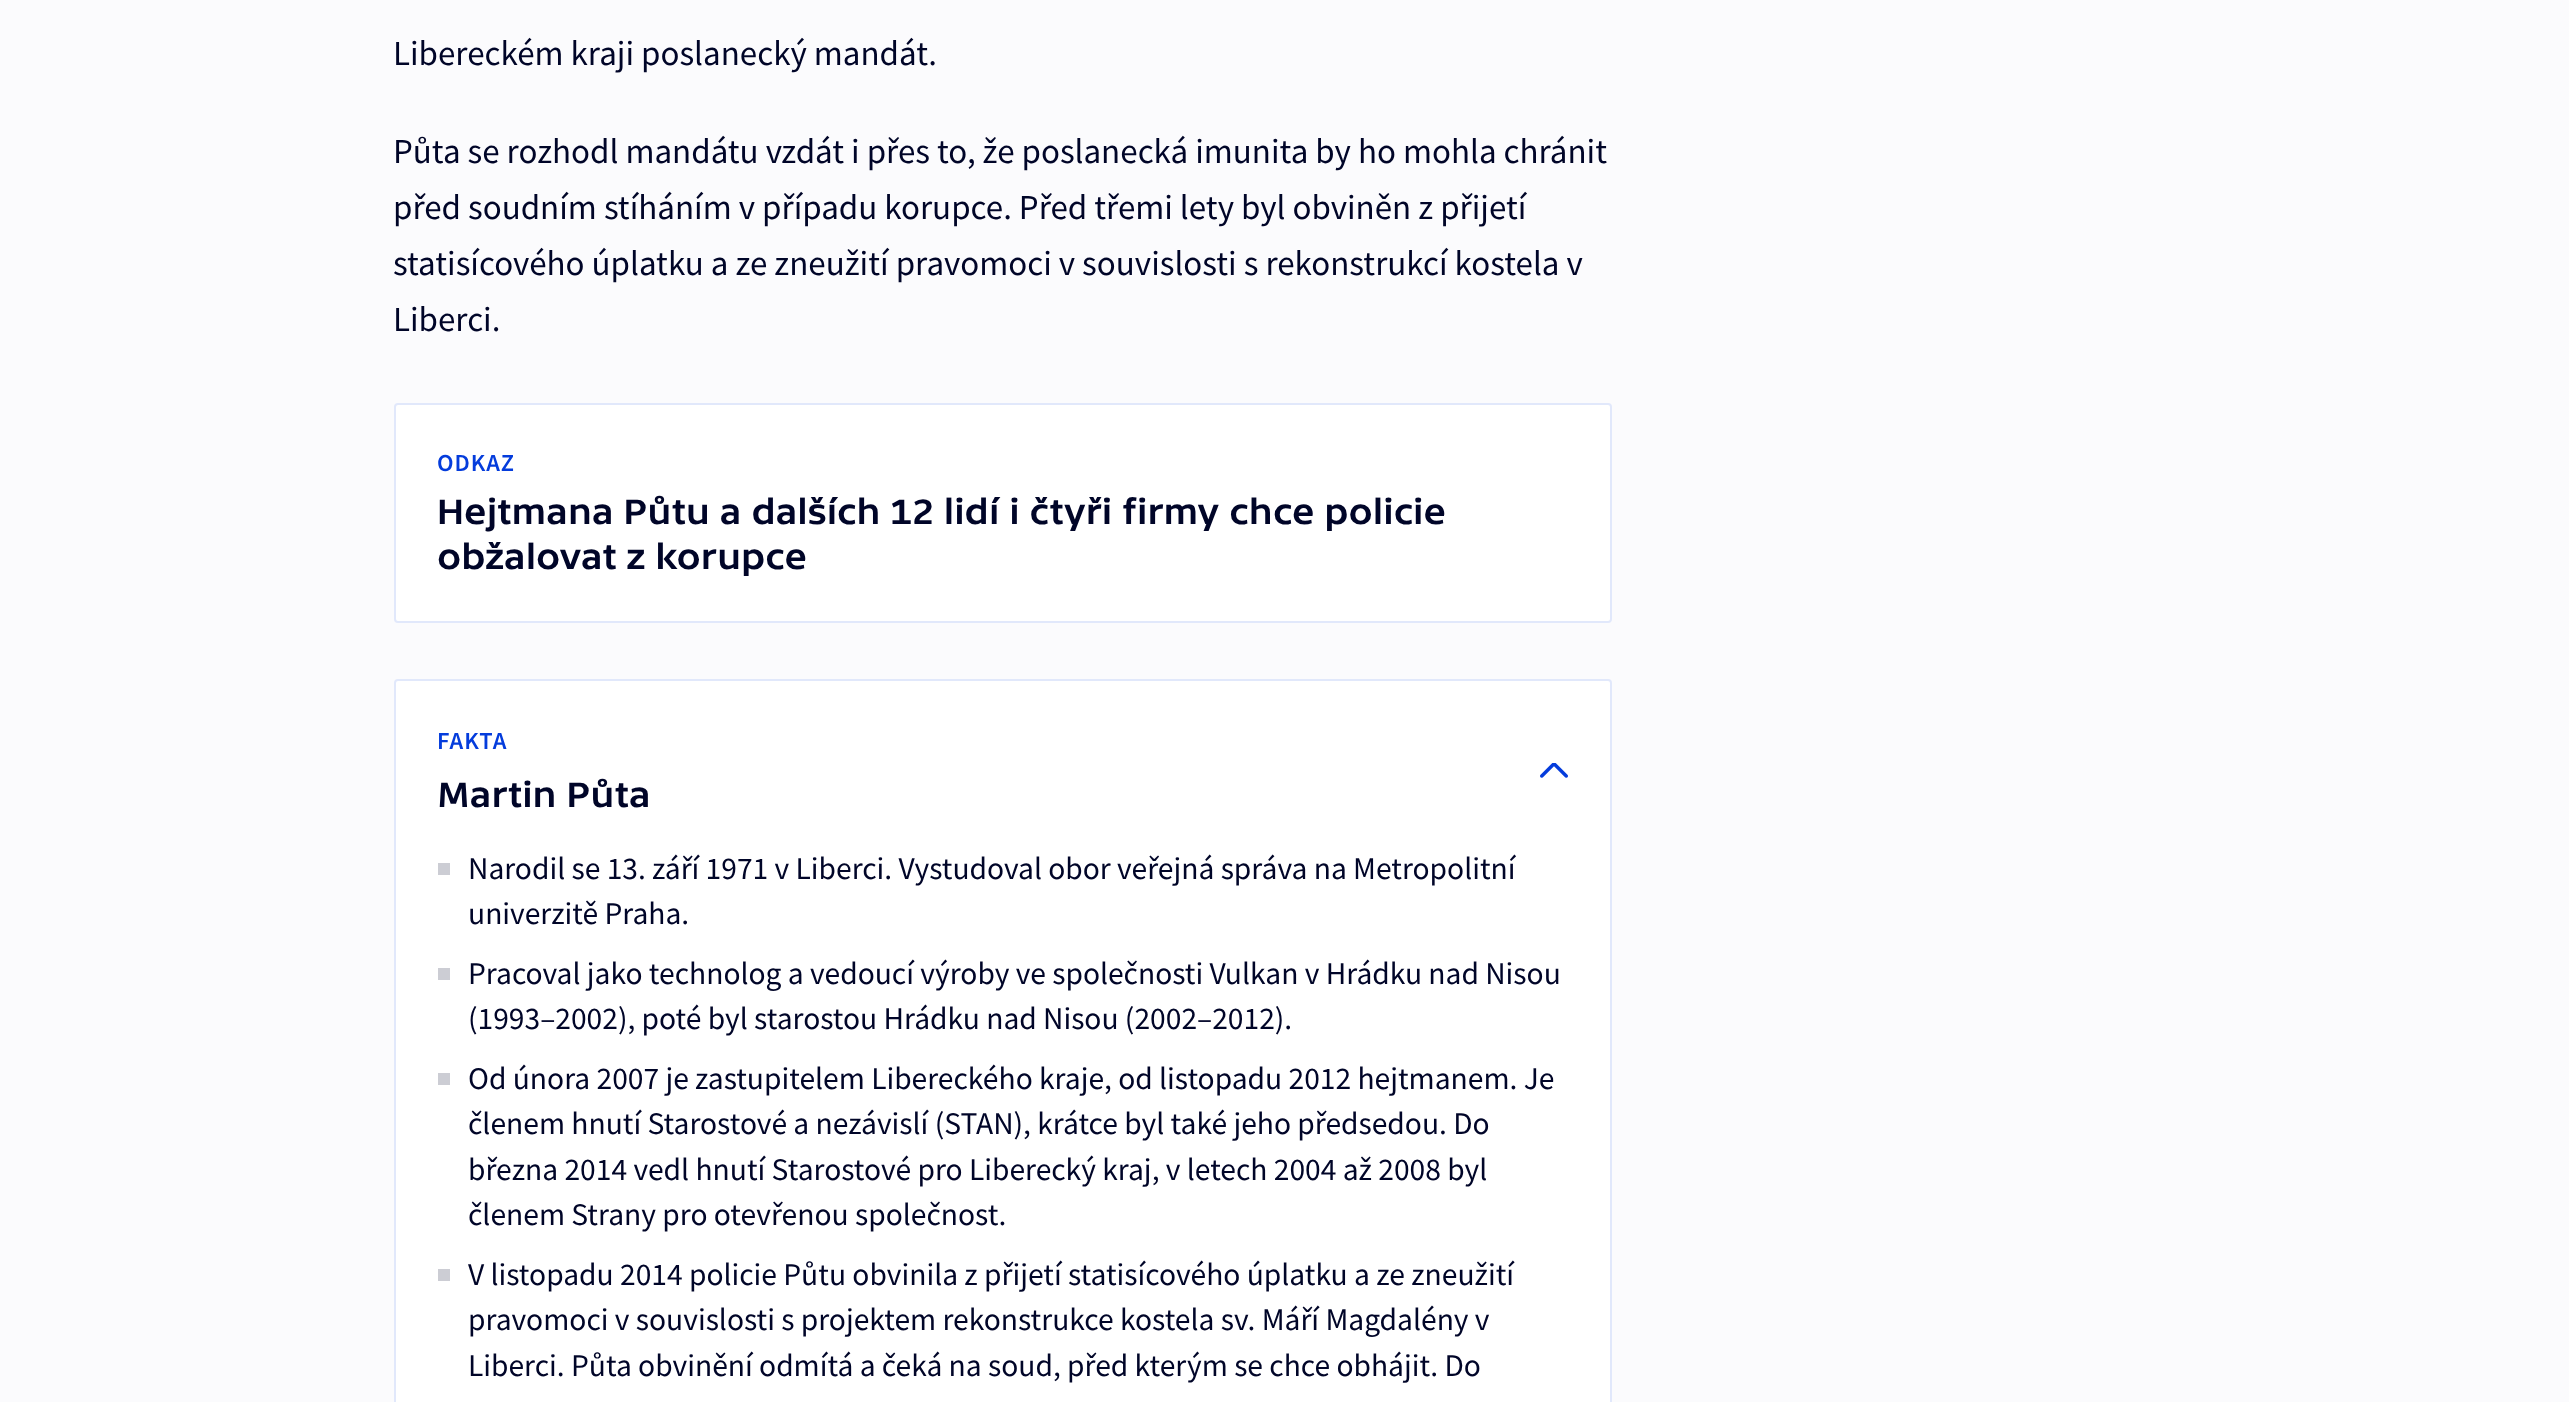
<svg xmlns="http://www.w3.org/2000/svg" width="2569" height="1402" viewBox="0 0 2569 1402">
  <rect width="100%" height="100%" fill="#fbfbfd"/>
  <text x="393" y="65" font-family="Source Sans Pro" font-size="35" fill="#000528">Libereckém kraji poslanecký mandát.</text>
  <text x="393" y="163" font-family="Source Sans Pro" font-size="35" fill="#000528">Půta se rozhodl mandátu vzdát i přes to, že poslanecká imunita by ho mohla chránit</text>
  <text x="393" y="219" font-family="Source Sans Pro" font-size="35" fill="#000528">před soudním stíháním v případu korupce. Před třemi lety byl obviněn z přijetí</text>
  <text x="393" y="275" font-family="Source Sans Pro" font-size="35" fill="#000528">statisícového úplatku a ze zneužití pravomoci v souvislosti s rekonstrukcí kostela v</text>
  <text x="393" y="331" font-family="Source Sans Pro" font-size="35" fill="#000528">Liberci.</text>
  <rect x="395" y="404" width="1216" height="218" rx="3" fill="#ffffff" stroke="#e1e8fb" stroke-width="2"/>
  <text x="437" y="471" font-family="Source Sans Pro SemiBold" font-size="24.5" font-weight="600" letter-spacing="1" fill="#043cdc">ODKAZ</text>
  <text x="437" y="524" font-family="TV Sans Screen" font-size="36.75" fill="#000528">Hejtmana Půtu a dalších 12 lidí i čtyři firmy chce policie</text>
  <text x="437" y="569" font-family="TV Sans Screen" font-size="36.75" fill="#000528">obžalovat z korupce</text>
  <rect x="395" y="680" width="1216" height="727" rx="3" fill="#ffffff" stroke="#e1e8fb" stroke-width="2"/>
  <text x="437" y="749" font-family="Source Sans Pro SemiBold" font-size="24.5" font-weight="600" letter-spacing="1" fill="#043cdc">FAKTA</text>
  <text x="437" y="807" font-family="TV Sans Screen" font-size="36.75" fill="#000528">Martin Půta</text>
  <image x="1540" y="763" width="28" height="15" href="img1.png"/>
  <rect x="438" y="863" width="12" height="12" fill="#cccdd4"/>
  <text x="468" y="879" font-family="Source Sans Pro" font-size="31.5" fill="#000528">Narodil se 13. září 1971 v Liberci. Vystudoval obor veřejná správa na Metropolitní</text>
  <text x="468" y="924" font-family="Source Sans Pro" font-size="31.5" fill="#000528">univerzitě Praha.</text>
  <rect x="438" y="968" width="12" height="12" fill="#cccdd4"/>
  <text x="468" y="984" font-family="Source Sans Pro" font-size="31.5" fill="#000528">Pracoval jako technolog a vedoucí výroby ve společnosti Vulkan v Hrádku nad Nisou</text>
  <text x="468" y="1029" font-family="Source Sans Pro" font-size="31.5" fill="#000528">(1993–2002), poté byl starostou Hrádku nad Nisou (2002–2012).</text>
  <rect x="438" y="1073" width="12" height="12" fill="#cccdd4"/>
  <text x="468" y="1089" font-family="Source Sans Pro" font-size="31.5" fill="#000528">Od února 2007 je zastupitelem Libereckého kraje, od listopadu 2012 hejtmanem. Je</text>
  <text x="468" y="1134" font-family="Source Sans Pro" font-size="31.5" fill="#000528">členem hnutí Starostové a nezávislí (STAN), krátce byl také jeho předsedou. Do</text>
  <text x="468" y="1180" font-family="Source Sans Pro" font-size="31.5" fill="#000528">března 2014 vedl hnutí Starostové pro Liberecký kraj, v letech 2004 až 2008 byl</text>
  <text x="468" y="1225" font-family="Source Sans Pro" font-size="31.5" fill="#000528">členem Strany pro otevřenou společnost.</text>
  <rect x="438" y="1269" width="12" height="12" fill="#cccdd4"/>
  <text x="468" y="1285" font-family="Source Sans Pro" font-size="31.5" fill="#000528">V listopadu 2014 policie Půtu obvinila z přijetí statisícového úplatku a ze zneužití</text>
  <text x="468" y="1330" font-family="Source Sans Pro" font-size="31.5" fill="#000528">pravomoci v souvislosti s projektem rekonstrukce kostela sv. Máří Magdalény v</text>
  <text x="468" y="1376" font-family="Source Sans Pro" font-size="31.5" fill="#000528">Liberci. Půta obvinění odmítá a čeká na soud, před kterým se chce obhájit. Do</text>
</svg>
